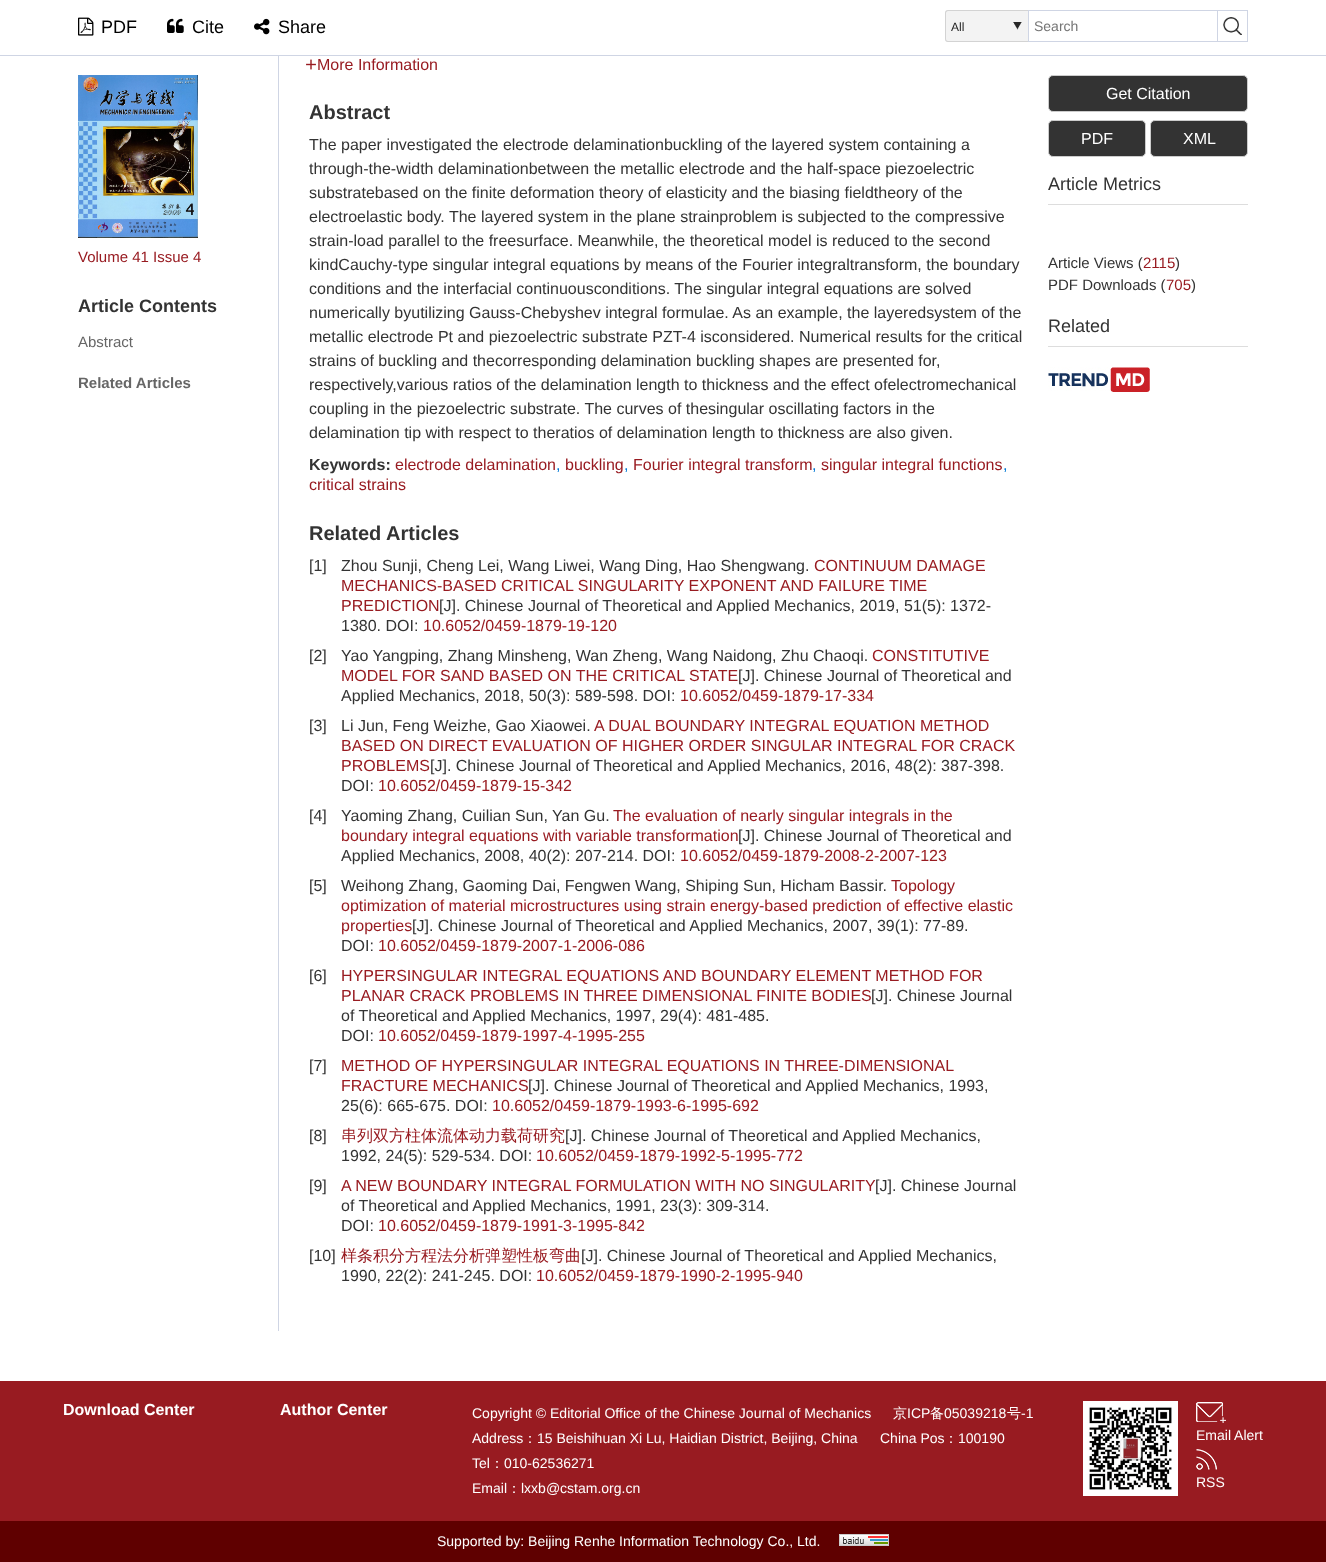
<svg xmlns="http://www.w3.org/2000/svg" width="1326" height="1562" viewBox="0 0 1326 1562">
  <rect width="100%" height="100%" fill="#ffffff"/>
  <rect x="0" y="55" width="1326" height="1" fill="#cfd5e4"/>
  <image x="78" y="17" width="16" height="19" href="img1.png"/>
  <text x="101" y="33" font-family="Liberation Sans" font-size="18" fill="#000000">PDF</text>
  <image x="167" y="18" width="17" height="15" href="img2.png"/>
  <text x="192" y="33" font-family="Liberation Sans" font-size="18" fill="#000000">Cite</text>
  <image x="254" y="18" width="16" height="17" href="img3.png"/>
  <text x="278" y="33" font-family="Liberation Sans" font-size="18" fill="#000000">Share</text>
  <path d="M948 10H1028V42H948C946.5 42 945 40.5 945 39V13C945 11.5 946.5 10 948 10Z" fill="#f3f3f3"/>
  <image x="1013" y="22" width="9" height="8" href="img4.png"/>
  <path d="M948 10H1028V42H948C946 42 945 41 945 39V13C945 11 946 10 948 10ZM948 11H1028V41H948C947 41 946 40 946 39V13C946 12 947 11 948 11Z" fill="#d3d3d3" fill-rule="evenodd"/>
  <text x="951" y="31" font-family="Liberation Sans" font-size="12" fill="#222222">All</text>
  <rect x="1028.5" y="10.5" width="189" height="31" fill="none" stroke="#cfd5e4"/>
  <text x="1034" y="31" font-family="Liberation Sans" font-size="14" fill="#757575">Search</text>
  <image x="1223" y="17" width="19" height="18" href="img5.png"/>
  <rect x="1218" y="10" width="30" height="1" fill="#cfd5e4"/>
  <rect x="1247" y="10" width="1" height="32" fill="#cfd5e4"/>
  <rect x="1218" y="41" width="30" height="1" fill="#cfd5e4"/>
  <image x="78" y="75" width="120" height="163" href="img6.png"/>
  <text x="78" y="262" font-family="Liberation Sans" font-size="15" fill="#981b21">Volume 41 Issue 4</text>
  <text x="78" y="312" font-family="Liberation Sans" font-size="18" font-weight="bold" fill="#333333">Article Contents</text>
  <text x="78" y="347" font-family="Liberation Sans" font-size="15" fill="#666666">Abstract</text>
  <text x="78" y="388" font-family="Liberation Sans" font-size="15" font-weight="bold" fill="#666666">Related Articles</text>
  <rect x="278" y="56" width="1" height="1275" fill="#cfd5e4"/>
  <image x="306" y="59" width="10" height="11" href="img7.png"/>
  <text x="317" y="70" font-family="Liberation Sans" font-size="16" fill="#981b21">More Information</text>
  <text x="309" y="119" font-family="Liberation Sans" font-size="20" font-weight="bold" fill="#333333">Abstract</text>
  <text x="309" y="150" font-family="Liberation Sans" font-size="16" fill="#333333">The paper investigated the electrode delaminationbuckling of the layered system containing a</text>
  <text x="309" y="174" font-family="Liberation Sans" font-size="16" fill="#333333">through-the-width delaminationbetween the metallic electrode and the half-space piezoelectric</text>
  <text x="309" y="198" font-family="Liberation Sans" font-size="16" fill="#333333">substratebased on the finite deformation theory of elasticity and the biasing fieldtheory of the</text>
  <text x="309" y="222" font-family="Liberation Sans" font-size="16" fill="#333333">electroelastic body. The layered system in the plane strainproblem is subjected to the compressive</text>
  <text x="309" y="246" font-family="Liberation Sans" font-size="16" fill="#333333">strain-load parallel to the freesurface. Meanwhile, the theoretical model is reduced to the second</text>
  <text x="309" y="270" font-family="Liberation Sans" font-size="16" fill="#333333">kindCauchy-type singular integral equations by means of the Fourier integraltransform, the boundary</text>
  <text x="309" y="294" font-family="Liberation Sans" font-size="16" fill="#333333">conditions and the interfacial continuousconditions. The singular integral equations are solved</text>
  <text x="309" y="318" font-family="Liberation Sans" font-size="16" fill="#333333">numerically byutilizing Gauss-Chebyshev integral formulae. As an example, the layeredsystem of the</text>
  <text x="309" y="342" font-family="Liberation Sans" font-size="16" fill="#333333">metallic electrode Pt and piezoelectric substrate PZT-4 isconsidered. Numerical results for the critical</text>
  <text x="309" y="366" font-family="Liberation Sans" font-size="16" fill="#333333">strains of buckling and thecorresponding delamination buckling shapes are presented for,</text>
  <text x="309" y="390" font-family="Liberation Sans" font-size="16" fill="#333333">respectively,various ratios of the delamination length to thickness and the effect ofelectromechanical</text>
  <text x="309" y="414" font-family="Liberation Sans" font-size="16" fill="#333333">coupling in the piezoelectric substrate. The curves of thesingular oscillating factors in the</text>
  <text x="309" y="438" font-family="Liberation Sans" font-size="16" fill="#333333">delamination tip with respect to theratios of delamination length to thickness are also given.</text>
  <text x="309" y="470" font-family="Liberation Sans" font-size="16" font-weight="bold" fill="#333333">Keywords:</text>
  <text x="395" y="470" font-family="Liberation Sans" font-size="16" fill="#981b21">electrode delamination</text>
  <text x="556" y="470" font-family="Liberation Sans" font-size="16" fill="#0178d6">,</text>
  <text x="565" y="470" font-family="Liberation Sans" font-size="16" fill="#981b21">buckling</text>
  <text x="624" y="470" font-family="Liberation Sans" font-size="16" fill="#0178d6">,</text>
  <text x="633" y="470" font-family="Liberation Sans" font-size="16" fill="#981b21">Fourier integral transform</text>
  <text x="812" y="470" font-family="Liberation Sans" font-size="16" fill="#0178d6">,</text>
  <text x="821" y="470" font-family="Liberation Sans" font-size="16" fill="#981b21">singular integral functions</text>
  <text x="1003" y="470" font-family="Liberation Sans" font-size="16" fill="#0178d6">,</text>
  <text x="309" y="490" font-family="Liberation Sans" font-size="16" fill="#981b21">critical strains</text>
  <text x="309" y="540" font-family="Liberation Sans" font-size="20" font-weight="bold" fill="#333333">Related Articles</text>
  <text x="309" y="571" font-family="Liberation Sans" font-size="16" fill="#333333">[1]</text>
  <text x="341" y="571" font-family="Liberation Sans" font-size="16" fill="#333333">Zhou Sunji, Cheng Lei, Wang Liwei, Wang Ding, Hao Shengwang.</text>
  <text x="814" y="571" font-family="Liberation Sans" font-size="16" fill="#981b21">CONTINUUM DAMAGE</text>
  <text x="341" y="591" font-family="Liberation Sans" font-size="16" fill="#981b21">MECHANICS-BASED CRITICAL SINGULARITY EXPONENT AND FAILURE TIME</text>
  <text x="341" y="611" font-family="Liberation Sans" font-size="16" fill="#981b21">PREDICTION</text>
  <text x="439" y="611" font-family="Liberation Sans" font-size="16" fill="#333333">[J]. Chinese Journal of Theoretical and Applied Mechanics, 2019, 51(5): 1372-</text>
  <text x="341" y="631" font-family="Liberation Sans" font-size="16" fill="#333333">1380. DOI:</text>
  <text x="423" y="631" font-family="Liberation Sans" font-size="16" fill="#981b21">10.6052/0459-1879-19-120</text>
  <text x="309" y="661" font-family="Liberation Sans" font-size="16" fill="#333333">[2]</text>
  <text x="341" y="661" font-family="Liberation Sans" font-size="16" fill="#333333">Yao Yangping, Zhang Minsheng, Wan Zheng, Wang Naidong, Zhu Chaoqi.</text>
  <text x="872" y="661" font-family="Liberation Sans" font-size="16" fill="#981b21">CONSTITUTIVE</text>
  <text x="341" y="681" font-family="Liberation Sans" font-size="16" fill="#981b21">MODEL FOR SAND BASED ON THE CRITICAL STATE</text>
  <text x="738" y="681" font-family="Liberation Sans" font-size="16" fill="#333333">[J]. Chinese Journal of Theoretical and</text>
  <text x="341" y="701" font-family="Liberation Sans" font-size="16" fill="#333333">Applied Mechanics, 2018, 50(3): 589-598. DOI:</text>
  <text x="680" y="701" font-family="Liberation Sans" font-size="16" fill="#981b21">10.6052/0459-1879-17-334</text>
  <text x="309" y="731" font-family="Liberation Sans" font-size="16" fill="#333333">[3]</text>
  <text x="341" y="731" font-family="Liberation Sans" font-size="16" fill="#333333">Li Jun, Feng Weizhe, Gao Xiaowei.</text>
  <text x="594" y="731" font-family="Liberation Sans" font-size="16" fill="#981b21">A DUAL BOUNDARY INTEGRAL EQUATION METHOD</text>
  <text x="341" y="751" font-family="Liberation Sans" font-size="16" fill="#981b21">BASED ON DIRECT EVALUATION OF HIGHER ORDER SINGULAR INTEGRAL FOR CRACK</text>
  <text x="341" y="771" font-family="Liberation Sans" font-size="16" fill="#981b21">PROBLEMS</text>
  <text x="430" y="771" font-family="Liberation Sans" font-size="16" fill="#333333">[J]. Chinese Journal of Theoretical and Applied Mechanics, 2016, 48(2): 387-398.</text>
  <text x="341" y="791" font-family="Liberation Sans" font-size="16" fill="#333333">DOI:</text>
  <text x="378" y="791" font-family="Liberation Sans" font-size="16" fill="#981b21">10.6052/0459-1879-15-342</text>
  <text x="309" y="821" font-family="Liberation Sans" font-size="16" fill="#333333">[4]</text>
  <text x="341" y="821" font-family="Liberation Sans" font-size="16" fill="#333333">Yaoming Zhang, Cuilian Sun, Yan Gu.</text>
  <text x="613" y="821" font-family="Liberation Sans" font-size="16" fill="#981b21">The evaluation of nearly singular integrals in the</text>
  <text x="341" y="841" font-family="Liberation Sans" font-size="16" fill="#981b21">boundary integral equations with variable transformation</text>
  <text x="738" y="841" font-family="Liberation Sans" font-size="16" fill="#333333">[J]. Chinese Journal of Theoretical and</text>
  <text x="341" y="861" font-family="Liberation Sans" font-size="16" fill="#333333">Applied Mechanics, 2008, 40(2): 207-214. DOI:</text>
  <text x="680" y="861" font-family="Liberation Sans" font-size="16" fill="#981b21">10.6052/0459-1879-2008-2-2007-123</text>
  <text x="309" y="891" font-family="Liberation Sans" font-size="16" fill="#333333">[5]</text>
  <text x="341" y="891" font-family="Liberation Sans" font-size="16" fill="#333333">Weihong Zhang, Gaoming Dai, Fengwen Wang, Shiping Sun, Hicham Bassir.</text>
  <text x="891" y="891" font-family="Liberation Sans" font-size="16" fill="#981b21">Topology</text>
  <text x="341" y="911" font-family="Liberation Sans" font-size="16" fill="#981b21">optimization of material microstructures using strain energy-based prediction of effective elastic</text>
  <text x="341" y="931" font-family="Liberation Sans" font-size="16" fill="#981b21">properties</text>
  <text x="412" y="931" font-family="Liberation Sans" font-size="16" fill="#333333">[J]. Chinese Journal of Theoretical and Applied Mechanics, 2007, 39(1): 77-89.</text>
  <text x="341" y="951" font-family="Liberation Sans" font-size="16" fill="#333333">DOI:</text>
  <text x="378" y="951" font-family="Liberation Sans" font-size="16" fill="#981b21">10.6052/0459-1879-2007-1-2006-086</text>
  <text x="309" y="981" font-family="Liberation Sans" font-size="16" fill="#333333">[6]</text>
  <text x="341" y="981" font-family="Liberation Sans" font-size="16" fill="#981b21">HYPERSINGULAR INTEGRAL EQUATIONS AND BOUNDARY ELEMENT METHOD FOR</text>
  <text x="341" y="1001" font-family="Liberation Sans" font-size="16" fill="#981b21">PLANAR CRACK PROBLEMS IN THREE DIMENSIONAL FINITE BODIES</text>
  <text x="871" y="1001" font-family="Liberation Sans" font-size="16" fill="#333333">[J]. Chinese Journal</text>
  <text x="341" y="1021" font-family="Liberation Sans" font-size="16" fill="#333333">of Theoretical and Applied Mechanics, 1997, 29(4): 481-485.</text>
  <text x="341" y="1041" font-family="Liberation Sans" font-size="16" fill="#333333">DOI:</text>
  <text x="378" y="1041" font-family="Liberation Sans" font-size="16" fill="#981b21">10.6052/0459-1879-1997-4-1995-255</text>
  <text x="309" y="1071" font-family="Liberation Sans" font-size="16" fill="#333333">[7]</text>
  <text x="341" y="1071" font-family="Liberation Sans" font-size="16" fill="#981b21">METHOD OF HYPERSINGULAR INTEGRAL EQUATIONS IN THREE-DIMENSIONAL</text>
  <text x="341" y="1091" font-family="Liberation Sans" font-size="16" fill="#981b21">FRACTURE MECHANICS</text>
  <text x="528" y="1091" font-family="Liberation Sans" font-size="16" fill="#333333">[J]. Chinese Journal of Theoretical and Applied Mechanics, 1993,</text>
  <text x="341" y="1111" font-family="Liberation Sans" font-size="16" fill="#333333">25(6): 665-675. DOI:</text>
  <text x="492" y="1111" font-family="Liberation Sans" font-size="16" fill="#981b21">10.6052/0459-1879-1993-6-1995-692</text>
  <text x="309" y="1141" font-family="Liberation Sans" font-size="16" fill="#333333">[8]</text>
  <text x="341" y="1141" font-family="WenQuanYi Zen Hei" font-size="16" font-weight="500" fill="#981b21">串列双方柱体流体动力载荷研究</text>
  <text x="565" y="1141" font-family="Liberation Sans" font-size="16" fill="#333333">[J]. Chinese Journal of Theoretical and Applied Mechanics,</text>
  <text x="341" y="1161" font-family="Liberation Sans" font-size="16" fill="#333333">1992, 24(5): 529-534. DOI:</text>
  <text x="536" y="1161" font-family="Liberation Sans" font-size="16" fill="#981b21">10.6052/0459-1879-1992-5-1995-772</text>
  <text x="309" y="1191" font-family="Liberation Sans" font-size="16" fill="#333333">[9]</text>
  <text x="341" y="1191" font-family="Liberation Sans" font-size="16" fill="#981b21">A NEW BOUNDARY INTEGRAL FORMULATION WITH NO SINGULARITY</text>
  <text x="875" y="1191" font-family="Liberation Sans" font-size="16" fill="#333333">[J]. Chinese Journal</text>
  <text x="341" y="1211" font-family="Liberation Sans" font-size="16" fill="#333333">of Theoretical and Applied Mechanics, 1991, 23(3): 309-314.</text>
  <text x="341" y="1231" font-family="Liberation Sans" font-size="16" fill="#333333">DOI:</text>
  <text x="378" y="1231" font-family="Liberation Sans" font-size="16" fill="#981b21">10.6052/0459-1879-1991-3-1995-842</text>
  <text x="309" y="1261" font-family="Liberation Sans" font-size="16" fill="#333333">[10]</text>
  <text x="341" y="1261" font-family="WenQuanYi Zen Hei" font-size="16" font-weight="500" fill="#981b21">样条积分方程法分析弹塑性板弯曲</text>
  <text x="581" y="1261" font-family="Liberation Sans" font-size="16" fill="#333333">[J]. Chinese Journal of Theoretical and Applied Mechanics,</text>
  <text x="341" y="1281" font-family="Liberation Sans" font-size="16" fill="#333333">1990, 22(2): 241-245. DOI:</text>
  <text x="536" y="1281" font-family="Liberation Sans" font-size="16" fill="#981b21">10.6052/0459-1879-1990-2-1995-940</text>
  <rect x="1048.5" y="75.5" width="199" height="36" rx="4.5" fill="#333333" stroke="#cccccc"/>
  <text x="1106" y="99" font-family="Liberation Sans" font-size="16" fill="#ffffff">Get Citation</text>
  <rect x="1048.5" y="120.5" width="97" height="36" rx="4.5" fill="#333333" stroke="#cccccc"/>
  <text x="1081" y="144" font-family="Liberation Sans" font-size="16" fill="#ffffff">PDF</text>
  <rect x="1150.5" y="120.5" width="97" height="36" rx="4.5" fill="#333333" stroke="#cccccc"/>
  <text x="1183" y="144" font-family="Liberation Sans" font-size="16" fill="#ffffff">XML</text>
  <rect x="1048" y="204" width="200" height="1" fill="#dddddd"/>
  <text x="1048" y="190" font-family="Liberation Sans" font-size="18" fill="#333333">Article Metrics</text>
  <text x="1048" y="268" font-family="Liberation Sans" font-size="15" fill="#333333">Article Views (</text>
  <text x="1143" y="268" font-family="Liberation Sans" font-size="15" fill="#981b21">2115</text>
  <text x="1175" y="268" font-family="Liberation Sans" font-size="15" fill="#333333">)</text>
  <text x="1048" y="290" font-family="Liberation Sans" font-size="15" fill="#333333">PDF Downloads (</text>
  <text x="1166" y="290" font-family="Liberation Sans" font-size="15" fill="#981b21">705</text>
  <text x="1191" y="290" font-family="Liberation Sans" font-size="15" fill="#333333">)</text>
  <rect x="1048" y="346" width="200" height="1" fill="#dddddd"/>
  <text x="1048" y="332" font-family="Liberation Sans" font-size="18" fill="#333333">Related</text>
  <image x="1048" y="367" width="102" height="25" href="img8.png"/>
  <rect x="0" y="1381" width="1326" height="140" fill="#981b21"/>
  <text x="63" y="1415" font-family="Liberation Sans" font-size="16" font-weight="bold" fill="#ffffff">Download Center</text>
  <text x="280" y="1415" font-family="Liberation Sans" font-size="16" font-weight="bold" fill="#ffffff">Author Center</text>
  <text x="472" y="1418" font-family="Liberation Sans" font-size="14" fill="#ffffff">Copyright © Editorial Office of the Chinese Journal of Mechanics</text>
  <text x="893" y="1418" font-family="WenQuanYi Zen Hei" font-size="14" font-weight="500" fill="#ffffff">京</text>
  <text x="907" y="1418" font-family="Liberation Sans" font-size="14" fill="#ffffff">ICP</text>
  <text x="930" y="1418" font-family="WenQuanYi Zen Hei" font-size="14" font-weight="500" fill="#ffffff">备</text>
  <text x="944" y="1418" font-family="Liberation Sans" font-size="14" fill="#ffffff">05039218</text>
  <text x="1007" y="1418" font-family="WenQuanYi Zen Hei" font-size="14" font-weight="500" fill="#ffffff">号</text>
  <text x="1021" y="1418" font-family="Liberation Sans" font-size="14" fill="#ffffff">-1</text>
  <text x="472" y="1443" font-family="Liberation Sans" font-size="14" fill="#ffffff">Address</text>
  <text x="523" y="1443" font-family="WenQuanYi Zen Hei" font-size="14" font-weight="500" fill="#ffffff">：</text>
  <text x="537" y="1443" font-family="Liberation Sans" font-size="14" fill="#ffffff">15 Beishihuan Xi Lu, Haidian District, Beijing, China</text>
  <text x="880" y="1443" font-family="Liberation Sans" font-size="14" fill="#ffffff">China Pos</text>
  <text x="944" y="1443" font-family="WenQuanYi Zen Hei" font-size="14" font-weight="500" fill="#ffffff">：</text>
  <text x="958" y="1443" font-family="Liberation Sans" font-size="14" fill="#ffffff">100190</text>
  <text x="472" y="1468" font-family="Liberation Sans" font-size="14" fill="#ffffff">Tel</text>
  <text x="490" y="1468" font-family="WenQuanYi Zen Hei" font-size="14" font-weight="500" fill="#ffffff">：</text>
  <text x="504" y="1468" font-family="Liberation Sans" font-size="14" fill="#ffffff">010-62536271</text>
  <text x="472" y="1493" font-family="Liberation Sans" font-size="14" fill="#ffffff">Email</text>
  <text x="507" y="1493" font-family="WenQuanYi Zen Hei" font-size="14" font-weight="500" fill="#ffffff">：</text>
  <text x="521" y="1493" font-family="Liberation Sans" font-size="14" fill="#ffffff">lxxb@cstam.org.cn</text>
  <image x="1083" y="1401" width="95" height="95" href="img9.png"/>
  <image x="1196" y="1402" width="30" height="21" href="img10.png"/>
  <text x="1196" y="1440" font-family="Liberation Sans" font-size="14" fill="#ffffff">Email Alert</text>
  <image x="1196" y="1449" width="21" height="21" href="img11.png"/>
  <text x="1196" y="1487" font-family="Liberation Sans" font-size="14" fill="#ffffff">RSS</text>
  <rect x="0" y="1521" width="1326" height="41" fill="#5f0000"/>
  <text x="437" y="1546" font-family="Liberation Sans" font-size="14" fill="#ffffff">Supported by: Beijing Renhe Information Technology Co., Ltd.</text>
  <image x="839" y="1534" width="50" height="12" href="img12.png"/>
</svg>
